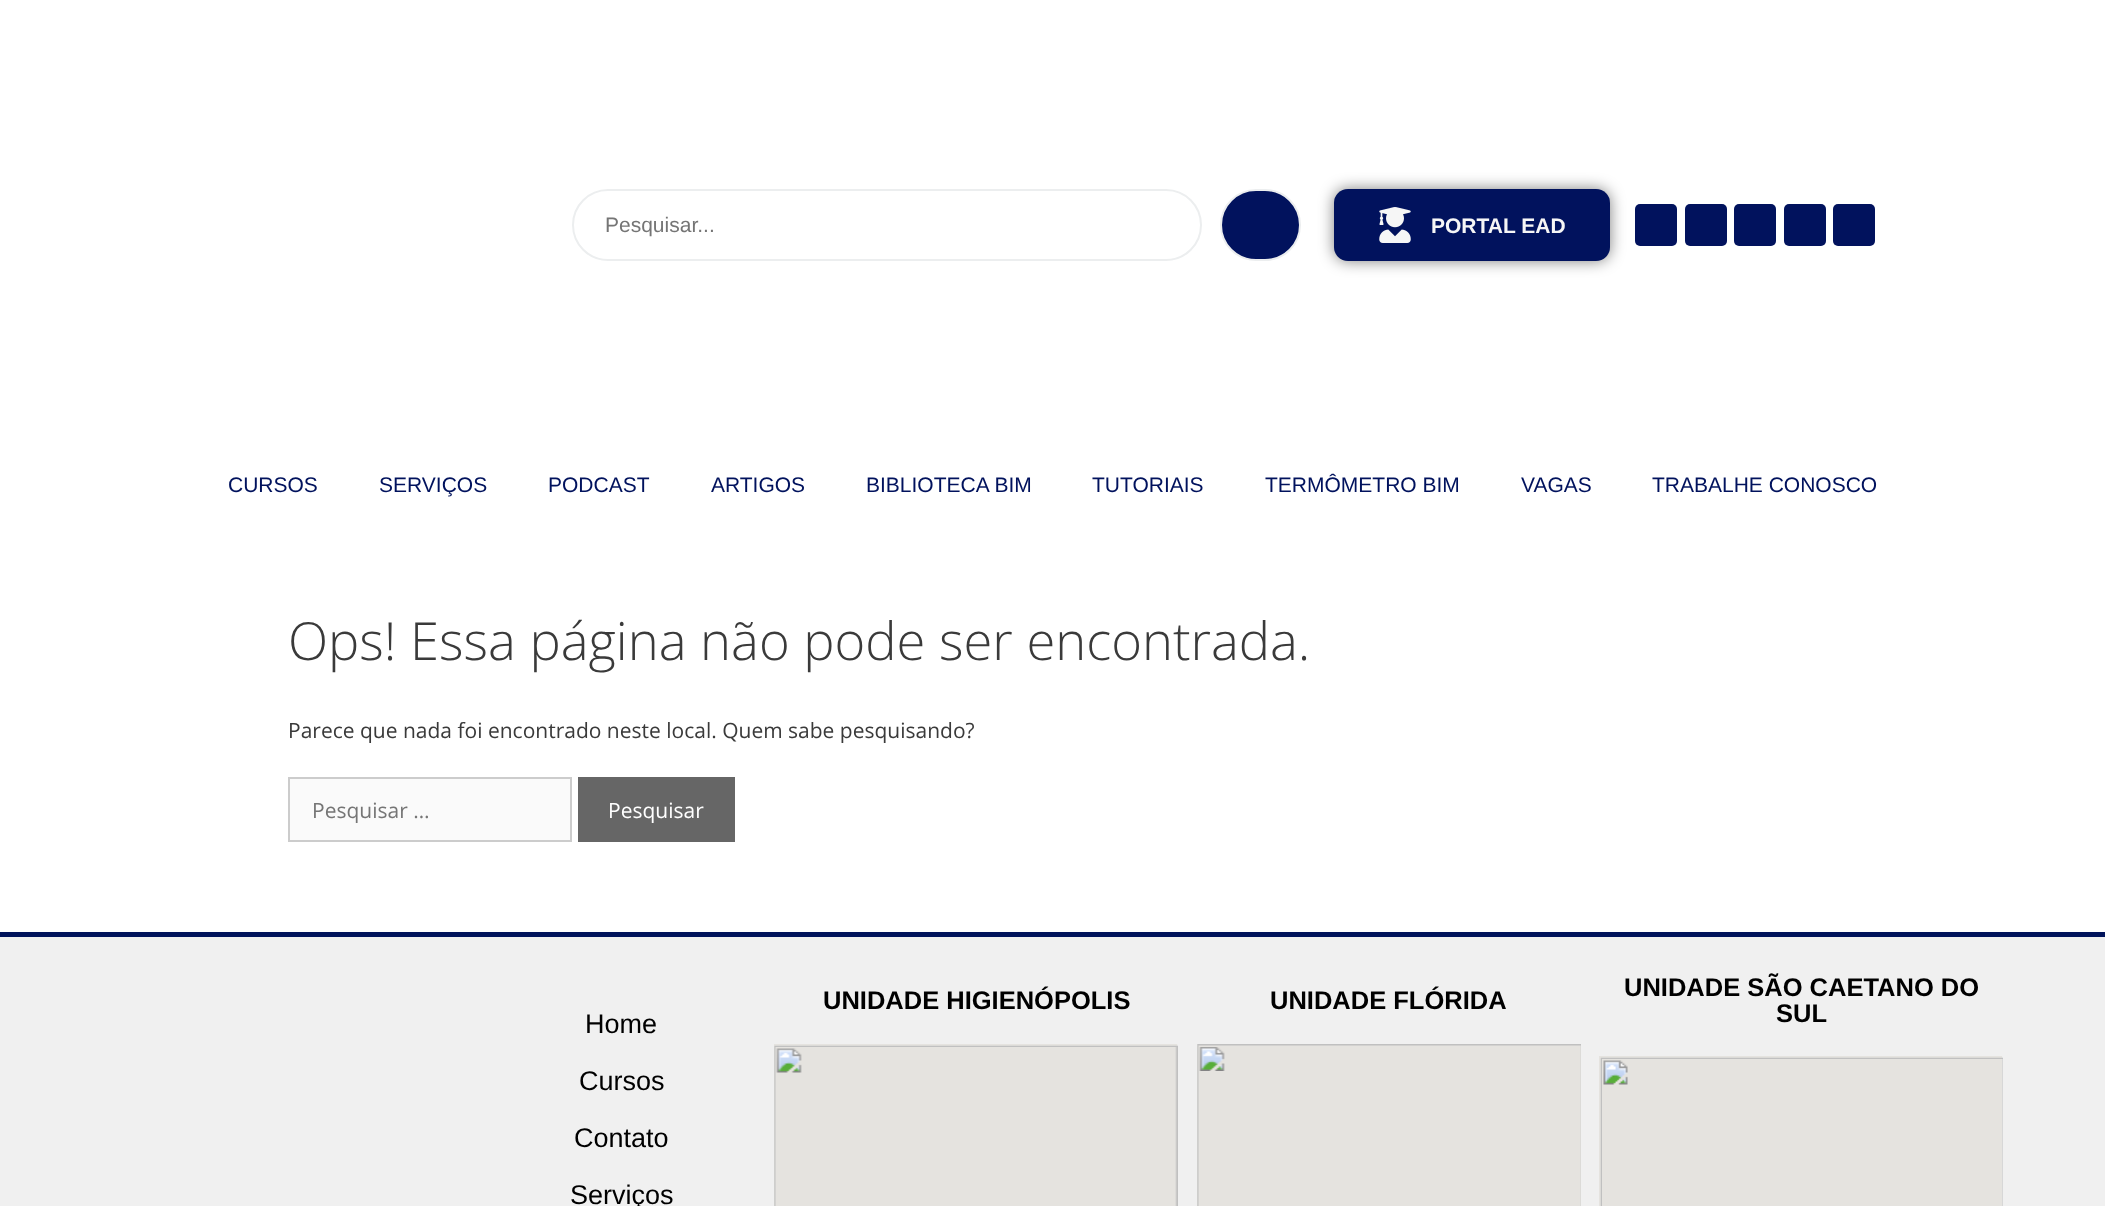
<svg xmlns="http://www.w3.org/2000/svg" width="2105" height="1206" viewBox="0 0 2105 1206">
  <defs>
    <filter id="blur1" x="-50%" y="-200%" width="200%" height="500%"><feGaussianBlur stdDeviation="7.5"/></filter>
  </defs>
  <rect width="100%" height="100%" fill="#ffffff"/>
  <rect x="573" y="190" width="628" height="70" rx="35" fill="none" stroke="#eceeef" stroke-width="2"/>
  <text x="605" y="232" font-family="Liberation Sans" font-size="21" fill="#757575">Pesquisar...</text>
  <rect x="1221" y="190" width="79" height="70" rx="35" fill="#01125d" stroke="#eceeef" stroke-width="2"/>
  <rect x="1334" y="189" width="276" height="72" rx="14" fill="#000000" fill-opacity="0.5" filter="url(#blur1)"/>
  <rect x="1334" y="189" width="276" height="72" rx="14" fill="#01125d"/>
  <image x="1379" y="207" width="32" height="36" href="img1.png"/>
  <text x="1431" y="233" font-family="Liberation Sans" font-size="21" font-weight="bold" fill="#f6f6f6">PORTAL EAD</text>
  <rect x="1635" y="204" width="42" height="42" rx="5" fill="#01125d"/>
  <rect x="1685" y="204" width="42" height="42" rx="5" fill="#01125d"/>
  <rect x="1734" y="204" width="42" height="42" rx="5" fill="#01125d"/>
  <rect x="1784" y="204" width="42" height="42" rx="5" fill="#01125d"/>
  <rect x="1833" y="204" width="42" height="42" rx="5" fill="#01125d"/>
  <text x="228" y="492" font-family="Liberation Sans" font-size="21" fill="#01125d">CURSOS</text>
  <text x="379" y="492" font-family="Liberation Sans" font-size="21" fill="#01125d">SERVIÇOS</text>
  <text x="548" y="492" font-family="Liberation Sans" font-size="21" fill="#01125d">PODCAST</text>
  <text x="711" y="492" font-family="Liberation Sans" font-size="21" fill="#01125d">ARTIGOS</text>
  <text x="866" y="492" font-family="Liberation Sans" font-size="21" fill="#01125d">BIBLIOTECA BIM</text>
  <text x="1092" y="492" font-family="Liberation Sans" font-size="21" fill="#01125d">TUTORIAIS</text>
  <text x="1265" y="492" font-family="Liberation Sans" font-size="21" fill="#01125d">TERMÔMETRO BIM</text>
  <text x="1521" y="492" font-family="Liberation Sans" font-size="21" fill="#01125d">VAGAS</text>
  <text x="1652" y="492" font-family="Liberation Sans" font-size="21" fill="#01125d">TRABALHE CONOSCO</text>
  <text x="288" y="660" font-family="Open Sans" font-size="52.5" font-weight="300" fill="#3a3a3a">Ops! Essa página não pode ser encontrada.</text>
  <text x="288" y="738" font-family="Open Sans" font-size="21" fill="#3a3a3a">Parece que nada foi encontrado neste local. Quem sabe pesquisando?</text>
  <rect x="289" y="778" width="282" height="63" fill="#fafafa" stroke="#cccccc" stroke-width="2"/>
  <text x="312" y="818" font-family="Open Sans" font-size="21" fill="#757575">Pesquisar …</text>
  <rect x="578" y="777" width="157" height="65" fill="#666666"/>
  <text x="608" y="818" font-family="Open Sans" font-size="21" fill="#ffffff">Pesquisar</text>
  <rect x="0" y="937" width="2105" height="269" fill="#f0f0f0"/>
  <rect x="0" y="932" width="2105" height="5" fill="#00135b"/>
  <text x="823" y="1009" font-family="Liberation Sans" font-size="25.5" font-weight="bold" fill="#000000">UNIDADE HIGIENÓPOLIS</text>
  <image x="774" y="1044" width="404" height="162" href="img2.png"/>
  <text x="1270" y="1009" font-family="Liberation Sans" font-size="25.5" font-weight="bold" fill="#000000">UNIDADE FLÓRIDA</text>
  <image x="1197" y="1044" width="384" height="162" href="img3.png"/>
  <text x="1624" y="996" font-family="Liberation Sans" font-size="25.5" font-weight="bold" fill="#000000">UNIDADE SÃO CAETANO DO</text>
  <text x="1776" y="1022" font-family="Liberation Sans" font-size="25.5" font-weight="bold" fill="#000000">SUL</text>
  <image x="1599" y="1056" width="404" height="150" href="img4.png"/>
  <text x="585" y="1033" font-family="Liberation Sans" font-size="27" fill="#000000">Home</text>
  <text x="579" y="1090" font-family="Liberation Sans" font-size="27" fill="#000000">Cursos</text>
  <text x="574" y="1147" font-family="Liberation Sans" font-size="27" fill="#000000">Contato</text>
  <text x="570" y="1204" font-family="Liberation Sans" font-size="27" fill="#000000">Serviços</text>
</svg>
